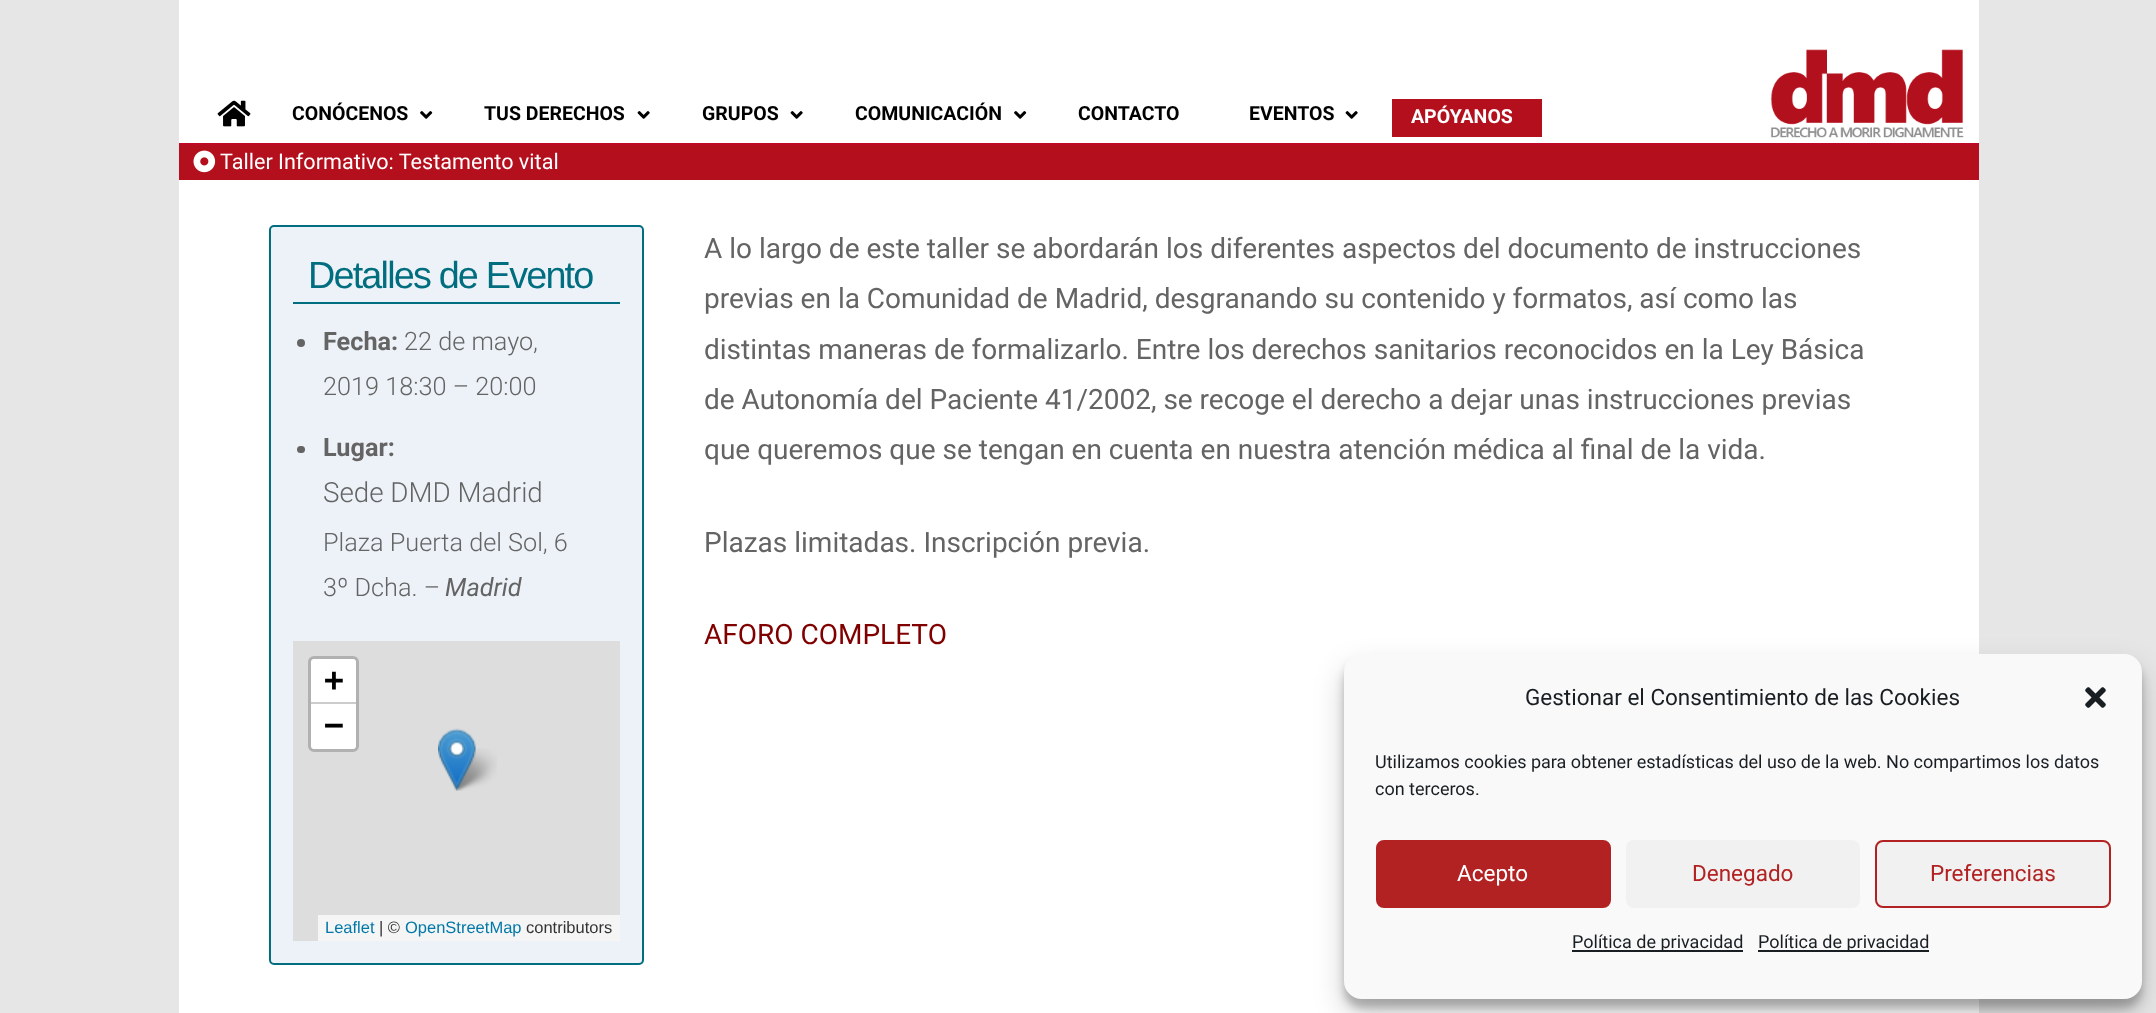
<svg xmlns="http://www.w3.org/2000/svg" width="2156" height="1013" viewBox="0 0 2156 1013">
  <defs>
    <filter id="blur1" x="-50%" y="-200%" width="200%" height="500%"><feGaussianBlur stdDeviation="4.5"/></filter>
    <filter id="blur2" x="-50%" y="-200%" width="200%" height="500%"><feGaussianBlur stdDeviation="15"/></filter>
  </defs>
  <rect width="100%" height="100%" fill="#e6e6e6"/>
  <rect x="179" y="0" width="1800" height="1013" fill="#ffffff"/>
  <rect x="179" y="143" width="1800" height="2" fill="#be0a27"/>
  <image x="217" y="100" width="34" height="27" href="img1.png"/>
  <text x="292" y="120" font-family="Roboto" font-size="19.5" font-weight="bold" fill="#000000">CONÓCENOS</text>
  <image x="420" y="111" width="13" height="8" href="img2.png"/>
  <text x="484" y="120" font-family="Roboto" font-size="19.5" font-weight="bold" fill="#000000">TUS DERECHOS</text>
  <image x="637" y="111" width="13" height="8" href="img3.png"/>
  <text x="702" y="120" font-family="Roboto" font-size="19.5" font-weight="bold" fill="#000000">GRUPOS</text>
  <image x="790" y="111" width="13" height="8" href="img3.png"/>
  <text x="855" y="120" font-family="Roboto" font-size="19.5" font-weight="bold" fill="#000000">COMUNICACIÓN</text>
  <image x="1014" y="111" width="13" height="8" href="img2.png"/>
  <text x="1078" y="120" font-family="Roboto" font-size="19.5" font-weight="bold" fill="#000000">CONTACTO</text>
  <text x="1249" y="120" font-family="Roboto" font-size="19.5" font-weight="bold" fill="#000000">EVENTOS</text>
  <image x="1345" y="111" width="13" height="8" href="img3.png"/>
  <rect x="1392" y="99" width="150" height="38" fill="#b30f1d"/>
  <text x="1411" y="123" font-family="Roboto" font-size="19.5" font-weight="bold" fill="#ffffff">APÓYANOS</text>
  <image x="1770" y="49" width="194" height="89" href="img4.png"/>
  <rect x="179" y="145" width="1800" height="35" fill="#b30f1d"/>
  <image x="193" y="150" width="23" height="23" href="img5.png"/>
  <text x="220" y="169" font-family="Roboto" font-size="21.6" fill="#ffffff">Taller Informativo: Testamento vital</text>
  <rect x="270" y="226" width="373" height="738" rx="4" fill="#edf2f9" stroke="#006e7f" stroke-width="2"/>
  <rect x="293" y="302" width="327" height="2" fill="#006e7f"/>
  <text x="308" y="288" font-family="Liberation Sans" font-size="37.75" letter-spacing="-1.8" fill="#006e7f">Detalles de Evento</text>
  <circle cx="301" cy="343" r="4" fill="#646464"/>
  <text x="323" y="350" font-family="Roboto" font-size="25.25" font-weight="bold" fill="#646464">Fecha:</text>
  <text x="404" y="350" font-family="Roboto" font-size="25.25" font-weight="300" fill="#646464">22 de mayo,</text>
  <text x="323" y="395" font-family="Roboto" font-size="25.25" font-weight="300" fill="#646464">2019 18:30 – 20:00</text>
  <rect x="297" y="446" width="8" height="7" rx="3.5" fill="#646464"/>
  <text x="323" y="456" font-family="Roboto" font-size="25.25" font-weight="bold" fill="#646464">Lugar:</text>
  <text x="323" y="502" font-family="Roboto" font-size="27.75" font-weight="300" fill="#646464">Sede DMD Madrid</text>
  <text x="323" y="551" font-family="Roboto" font-size="25.25" font-weight="300" fill="#646464">Plaza Puerta del Sol, 6</text>
  <text x="323" y="596" font-family="Roboto" font-size="25.25" font-weight="300" fill="#646464">3º Dcha. –</text>
  <text x="445" y="596" font-family="Roboto" font-size="25.25" font-style="italic" fill="#646464">Madrid</text>
  <rect x="293" y="641" width="327" height="300" fill="#dddddd"/>
  <rect x="309.5" y="657.5" width="48" height="93" rx="4.5" fill="none" stroke="#b1b1b1" stroke-width="3"/>
  <path d="M314 659H353C354.5 659 356 660.5 356 662V704H311V662C311 660.5 312.5 659 314 659Z" fill="#ffffff"/>
  <rect x="311" y="702" width="45" height="2" fill="#cccccc"/>
  <text x="324" y="691" font-family="DejaVu Sans Mono" font-size="33" font-weight="bold" fill="#000000">+</text>
  <path d="M311 704H356V746C356 747.5 354.5 749 353 749H314C312.5 749 311 747.5 311 746Z" fill="#ffffff"/>
  <text x="324" y="736" font-family="DejaVu Sans Mono" font-size="33" font-weight="bold" fill="#000000">−</text>
  <rect x="318" y="915" width="302" height="26" fill="#f5f5f5"/>
  <text x="325" y="933" font-family="Liberation Sans" font-size="16.5" fill="#0078a8">Leaflet</text>
  <text x="379" y="933" font-family="Liberation Sans" font-size="16.5" fill="#333333">| ©</text>
  <text x="405" y="933" font-family="Liberation Sans" font-size="16.5" fill="#0078a8">OpenStreetMap</text>
  <text x="526" y="933" font-family="Liberation Sans" font-size="16.5" fill="#333333">contributors</text>
  <image x="451" y="748" width="46" height="43" href="img7.png"/>
  <image x="438" y="728" width="38" height="63" href="img6.png"/>
  <text x="704" y="258" font-family="Roboto" font-size="28" fill="#646464">A lo largo de este taller se abordarán los diferentes aspectos del documento de instrucciones</text>
  <text x="704" y="308" font-family="Roboto" font-size="28" fill="#646464">previas en la Comunidad de Madrid, desgranando su contenido y formatos, así como las</text>
  <text x="704" y="359" font-family="Roboto" font-size="28" fill="#646464">distintas maneras de formalizarlo. Entre los derechos sanitarios reconocidos en la Ley Básica</text>
  <text x="704" y="409" font-family="Roboto" font-size="28" fill="#646464">de Autonomía del Paciente 41/2002, se recoge el derecho a dejar unas instrucciones previas</text>
  <text x="704" y="459" font-family="Roboto" font-size="28" fill="#646464">que queremos que se tengan en cuenta en nuestra atención médica al final de la vida.</text>
  <text x="704" y="552" font-family="Roboto" font-size="28" fill="#646464">Plazas limitadas. Inscripción previa.</text>
  <text x="704" y="644" font-family="Roboto" font-size="28" fill="#800000">AFORO COMPLETO</text>
  <rect x="1344" y="663" width="798" height="345" rx="18" fill="#000000" fill-opacity="0.23" filter="url(#blur1)"/>
  <rect x="1344" y="669" width="798" height="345" rx="18" fill="#000000" fill-opacity="0.19" filter="url(#blur2)"/>
  <rect x="1345" y="655" width="796" height="343" rx="17" fill="#f9f9f9" stroke="#f9f9f9" stroke-width="2"/>
  <text x="1525" y="705" font-family="Roboto" font-size="22.5" fill="#191e23">Gestionar el Consentimiento de las Cookies</text>
  <image x="2085" y="687" width="21" height="21" href="img8.png"/>
  <text x="1375" y="768" font-family="Roboto" font-size="18" fill="#191e23">Utilizamos cookies para obtener estadísticas del uso de la web. No compartimos los datos</text>
  <text x="1375" y="795" font-family="Roboto" font-size="18" fill="#191e23">con terceros.</text>
  <rect x="1377" y="841" width="233" height="66" rx="7" fill="#b22222" stroke="#b22222" stroke-width="2"/>
  <text x="1457" y="881" font-family="Roboto" font-size="22.5" fill="#ffffff">Acepto</text>
  <rect x="1626" y="840" width="234" height="68" rx="8" fill="#f1f1f1"/>
  <text x="1692" y="881" font-family="Roboto" font-size="22.5" fill="#b22222">Denegado</text>
  <rect x="1876" y="841" width="234" height="66" rx="7" fill="#f1f1f1" stroke="#b22222" stroke-width="2"/>
  <text x="1930" y="881" font-family="Roboto" font-size="22.5" fill="#b22222">Preferencias</text>
  <rect x="1572" y="950" width="171" height="2" fill="#191e23"/>
  <text x="1572" y="948" font-family="Roboto" font-size="18" fill="#191e23">Política de privacidad</text>
  <rect x="1758" y="950" width="171" height="2" fill="#191e23"/>
  <text x="1758" y="948" font-family="Roboto" font-size="18" fill="#191e23">Política de privacidad</text>
</svg>
